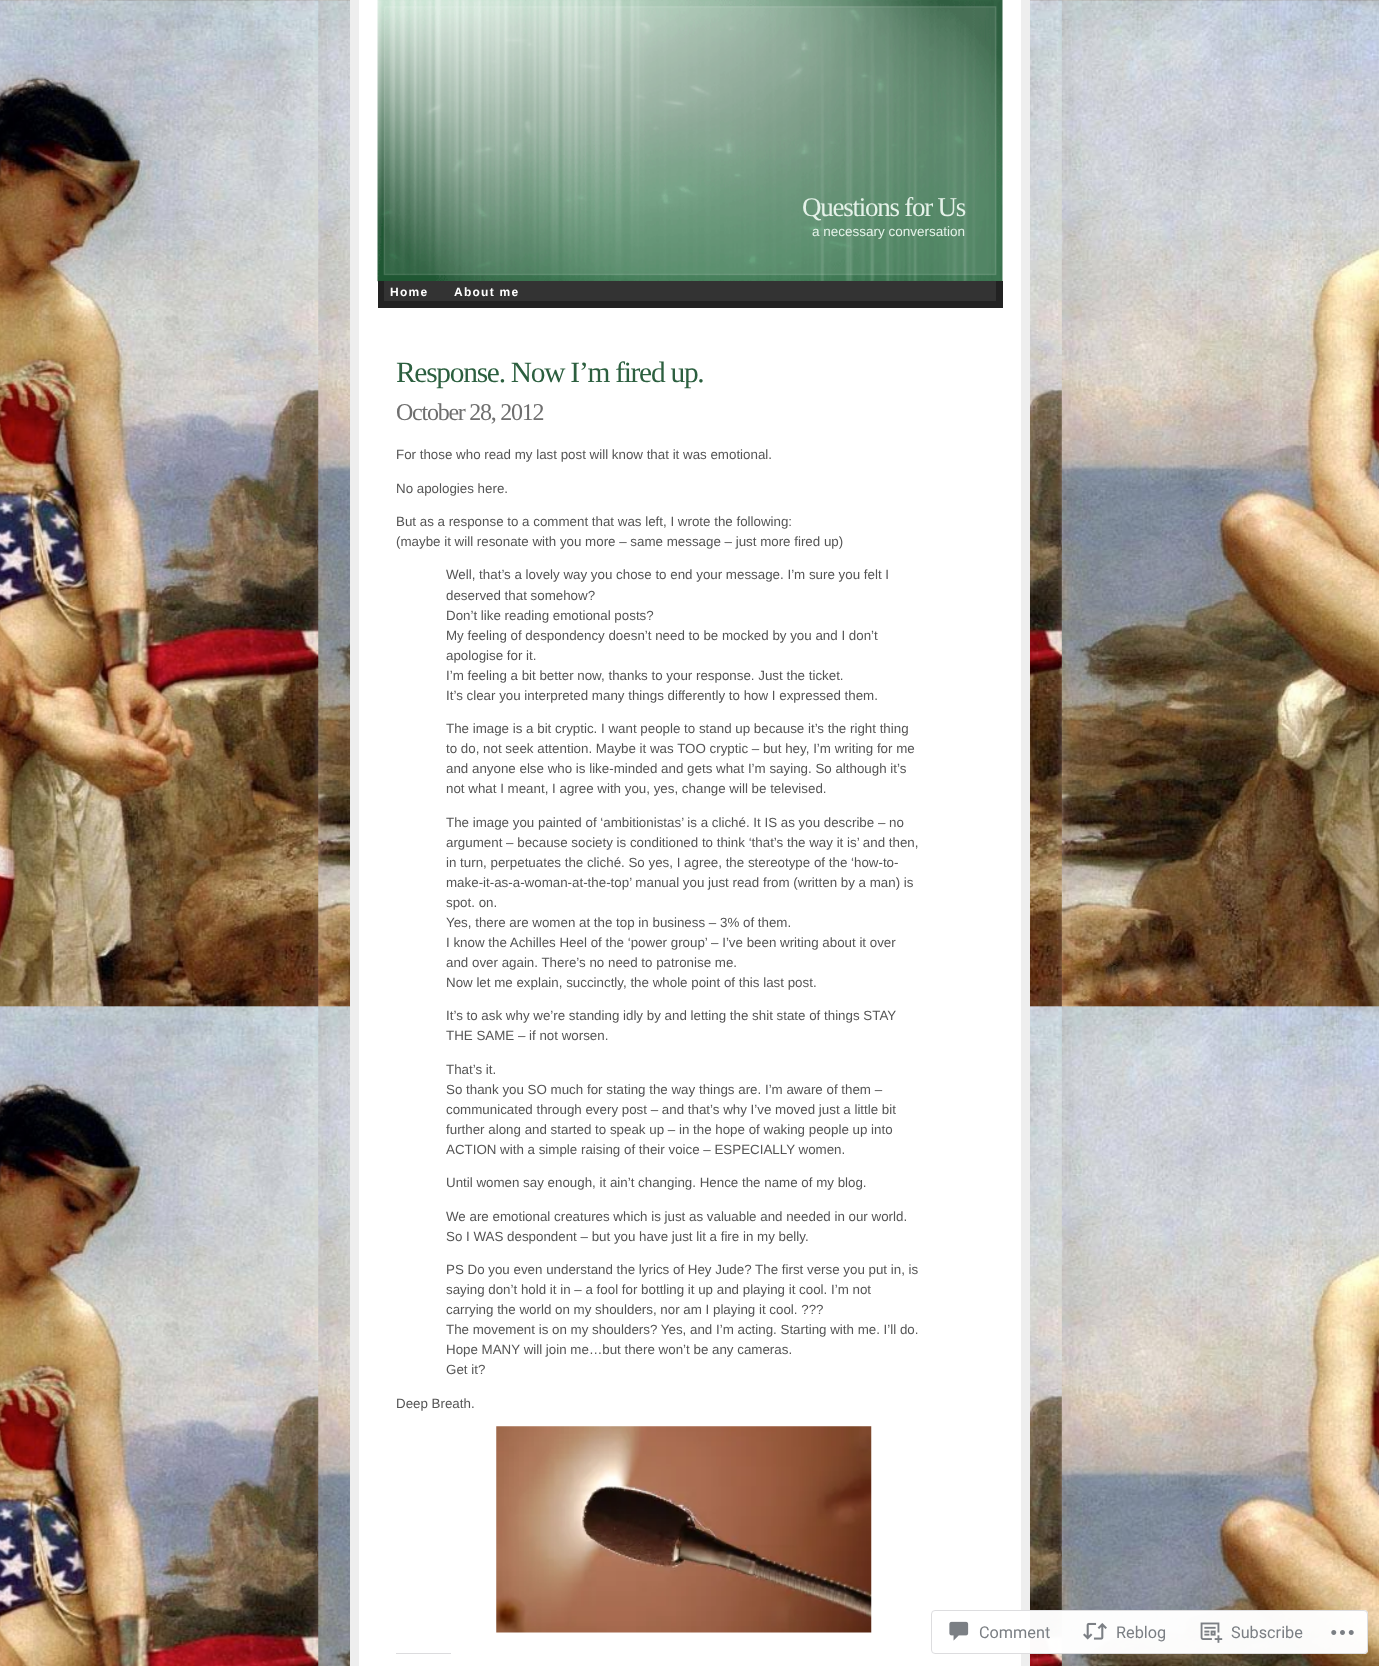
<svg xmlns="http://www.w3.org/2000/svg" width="1379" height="1666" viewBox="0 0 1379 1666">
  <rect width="100%" height="100%" fill="#ffffff"/>
  <image x="0" y="0" width="1379" height="1666" href="img1.png"/>
  <rect x="359" y="0" width="662" height="1666" fill="#ffffff"/>
  <rect x="1021" y="0" width="9" height="1666" fill="#eeeeee"/>
  <rect x="350" y="0" width="9" height="1666" fill="#eeeeee"/>
  <image x="377" y="0" width="626" height="282" href="img2.png"/>
  <text x="802" y="216" font-family="Liberation Serif" font-size="27" letter-spacing="-1.25" fill="#e5f2e9">Questions for Us</text>
  <text x="812" y="236" font-family="Liberation Sans" font-size="13.5" fill="#e5f2e9">a necessary conversation</text>
  <rect x="384" y="281" width="612" height="20" fill="#333333"/>
  <rect x="996" y="281" width="7" height="27" fill="#222222"/>
  <rect x="378" y="301" width="625" height="7" fill="#222222"/>
  <rect x="378" y="281" width="6" height="27" fill="#222222"/>
  <text x="390" y="296" font-family="Liberation Sans" font-size="12" font-weight="bold" letter-spacing="1.25" fill="#ffffff">Home</text>
  <text x="454" y="296" font-family="Liberation Sans" font-size="12" font-weight="bold" letter-spacing="1.25" fill="#ffffff">About me</text>
  <text x="396" y="382" font-family="Liberation Serif" font-size="29.4" letter-spacing="-1.25" fill="#2c5f3f">Response. Now I’m fired up.</text>
  <text x="396" y="420" font-family="Liberation Serif" font-size="24" letter-spacing="-1.25" fill="#6f6f6f">October 28, 2012</text>
  <text x="396" y="459" font-family="Liberation Sans" font-size="13.35" fill="#555555">For those who read my last post will know that it was emotional.</text>
  <text x="396" y="493" font-family="Liberation Sans" font-size="13.35" fill="#555555">No apologies here.</text>
  <text x="396" y="526" font-family="Liberation Sans" font-size="13.35" fill="#555555">But as a response to a comment that was left, I wrote the following:</text>
  <text x="396" y="546" font-family="Liberation Sans" font-size="13.35" fill="#555555">(maybe it will resonate with you more – same message – just more fired up)</text>
  <text x="446" y="579" font-family="Liberation Sans" font-size="13.35" fill="#555555">Well, that’s a lovely way you chose to end your message. I’m sure you felt I</text>
  <text x="446" y="600" font-family="Liberation Sans" font-size="13.35" fill="#555555">deserved that somehow?</text>
  <text x="446" y="620" font-family="Liberation Sans" font-size="13.35" fill="#555555">Don’t like reading emotional posts?</text>
  <text x="446" y="640" font-family="Liberation Sans" font-size="13.35" fill="#555555">My feeling of despondency doesn’t need to be mocked by you and I don’t</text>
  <text x="446" y="660" font-family="Liberation Sans" font-size="13.35" fill="#555555">apologise for it.</text>
  <text x="446" y="680" font-family="Liberation Sans" font-size="13.35" fill="#555555">I’m feeling a bit better now, thanks to your response. Just the ticket.</text>
  <text x="446" y="700" font-family="Liberation Sans" font-size="13.35" fill="#555555">It’s clear you interpreted many things differently to how I expressed them.</text>
  <text x="446" y="733" font-family="Liberation Sans" font-size="13.35" fill="#555555">The image is a bit cryptic. I want people to stand up because it’s the right thing</text>
  <text x="446" y="753" font-family="Liberation Sans" font-size="13.35" fill="#555555">to do, not seek attention. Maybe it was TOO cryptic – but hey, I’m writing for me</text>
  <text x="446" y="773" font-family="Liberation Sans" font-size="13.35" fill="#555555">and anyone else who is like-minded and gets what I’m saying. So although it’s</text>
  <text x="446" y="793" font-family="Liberation Sans" font-size="13.35" fill="#555555">not what I meant, I agree with you, yes, change will be televised.</text>
  <text x="446" y="827" font-family="Liberation Sans" font-size="13.35" fill="#555555">The image you painted of ‘ambitionistas’ is a cliché. It IS as you describe – no</text>
  <text x="446" y="847" font-family="Liberation Sans" font-size="13.35" fill="#555555">argument – because society is conditioned to think ‘that’s the way it is’ and then,</text>
  <text x="446" y="867" font-family="Liberation Sans" font-size="13.35" fill="#555555">in turn, perpetuates the cliché. So yes, I agree, the stereotype of the ‘how-to-</text>
  <text x="446" y="887" font-family="Liberation Sans" font-size="13.35" fill="#555555">make-it-as-a-woman-at-the-top’ manual you just read from (written by a man) is</text>
  <text x="446" y="907" font-family="Liberation Sans" font-size="13.35" fill="#555555">spot. on.</text>
  <text x="446" y="927" font-family="Liberation Sans" font-size="13.35" fill="#555555">Yes, there are women at the top in business – 3% of them.</text>
  <text x="446" y="947" font-family="Liberation Sans" font-size="13.35" fill="#555555">I know the Achilles Heel of the ‘power group’ – I’ve been writing about it over</text>
  <text x="446" y="967" font-family="Liberation Sans" font-size="13.35" fill="#555555">and over again. There’s no need to patronise me.</text>
  <text x="446" y="987" font-family="Liberation Sans" font-size="13.35" fill="#555555">Now let me explain, succinctly, the whole point of this last post.</text>
  <text x="446" y="1020" font-family="Liberation Sans" font-size="13.35" fill="#555555">It’s to ask why we’re standing idly by and letting the shit state of things STAY</text>
  <text x="446" y="1040" font-family="Liberation Sans" font-size="13.35" fill="#555555">THE SAME – if not worsen.</text>
  <text x="446" y="1074" font-family="Liberation Sans" font-size="13.35" fill="#555555">That’s it.</text>
  <text x="446" y="1094" font-family="Liberation Sans" font-size="13.35" fill="#555555">So thank you SO much for stating the way things are. I’m aware of them –</text>
  <text x="446" y="1114" font-family="Liberation Sans" font-size="13.35" fill="#555555">communicated through every post – and that’s why I’ve moved just a little bit</text>
  <text x="446" y="1134" font-family="Liberation Sans" font-size="13.35" fill="#555555">further along and started to speak up – in the hope of waking people up into</text>
  <text x="446" y="1154" font-family="Liberation Sans" font-size="13.35" fill="#555555">ACTION with a simple raising of their voice – ESPECIALLY women.</text>
  <text x="446" y="1187" font-family="Liberation Sans" font-size="13.35" fill="#555555">Until women say enough, it ain’t changing. Hence the name of my blog.</text>
  <text x="446" y="1221" font-family="Liberation Sans" font-size="13.35" fill="#555555">We are emotional creatures which is just as valuable and needed in our world.</text>
  <text x="446" y="1241" font-family="Liberation Sans" font-size="13.35" fill="#555555">So I WAS despondent – but you have just lit a fire in my belly.</text>
  <text x="446" y="1274" font-family="Liberation Sans" font-size="13.35" fill="#555555">PS Do you even understand the lyrics of Hey Jude? The first verse you put in, is</text>
  <text x="446" y="1294" font-family="Liberation Sans" font-size="13.35" fill="#555555">saying don’t hold it in – a fool for bottling it up and playing it cool. I’m not</text>
  <text x="446" y="1314" font-family="Liberation Sans" font-size="13.35" fill="#555555">carrying the world on my shoulders, nor am I playing it cool. ???</text>
  <text x="446" y="1334" font-family="Liberation Sans" font-size="13.35" fill="#555555">The movement is on my shoulders? Yes, and I’m acting. Starting with me. I’ll do.</text>
  <text x="446" y="1354" font-family="Liberation Sans" font-size="13.35" fill="#555555">Hope MANY will join me…but there won’t be any cameras.</text>
  <text x="446" y="1374" font-family="Liberation Sans" font-size="13.35" fill="#555555">Get it?</text>
  <text x="396" y="1408" font-family="Liberation Sans" font-size="13.35" fill="#555555">Deep Breath.</text>
  <image x="496" y="1426" width="376" height="207" href="img3.png"/>
  <rect x="396" y="1653" width="55" height="1" fill="#dcdcde"/>
  <rect x="931" y="1610" width="437" height="44" rx="4" fill="#ffffff" fill-opacity="0.98"/>
  <rect x="931.5" y="1610.5" width="436" height="43" rx="3.5" fill="none" stroke="#dcdcde" stroke-opacity="0.98"/>
  <image x="949" y="1621" width="20" height="20" href="img4.png"/>
  <text x="979" y="1638" font-family="Roboto" font-size="16.25" fill="#7b7f84">Comment</text>
  <image x="1083" y="1622" width="24" height="18" href="img5.png"/>
  <text x="1116" y="1638" font-family="Roboto" font-size="16.25" fill="#7b7f84">Reblog</text>
  <image x="1200" y="1622" width="23" height="21" href="img6.png"/>
  <text x="1231" y="1638" font-family="Roboto" font-size="16.25" fill="#7b7f84">Subscribe</text>
  <image x="1331" y="1630" width="23" height="5" href="img7.png"/>
</svg>
